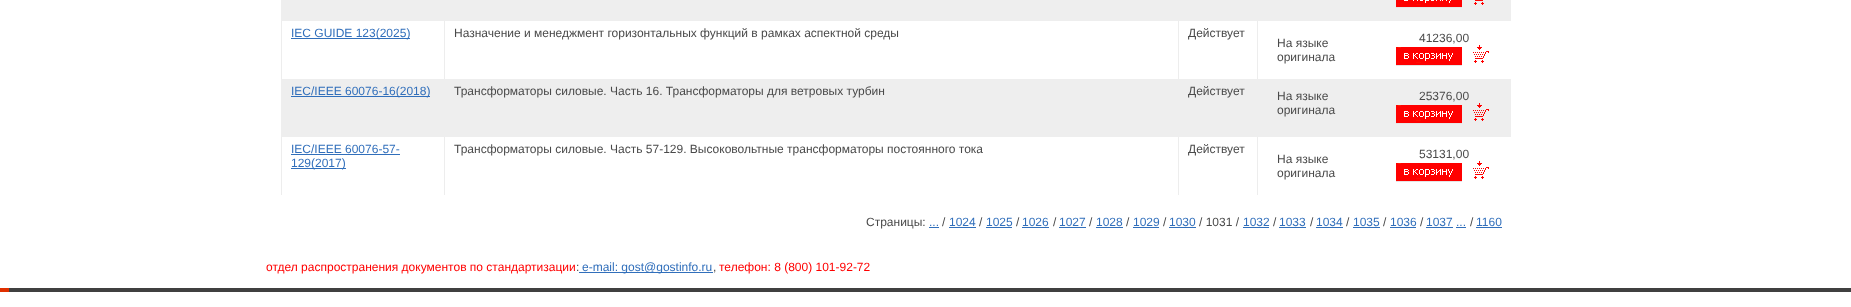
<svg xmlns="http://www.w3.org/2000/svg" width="1851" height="307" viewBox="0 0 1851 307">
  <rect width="100%" height="100%" fill="#ffffff"/>
  <rect x="281" y="0" width="1230" height="21" fill="#eeeeee"/>
  <image x="1396" y="0" width="88" height="8" href="img1.png"/>
  <rect x="281" y="21" width="1" height="58" fill="#ededed"/>
  <rect x="291" y="38" width="119" height="1" fill="#316fbb"/>
  <text x="291" y="37" font-family="Liberation Sans" font-size="12" fill="#316fbb">IEC GUIDE 123(2025)</text>
  <rect x="444" y="21" width="1" height="58" fill="#ededed"/>
  <text x="454" y="37" font-family="Liberation Sans" font-size="12" fill="#4a4a4a">Назначение и менеджмент горизонтальных функций в рамках аспектной среды</text>
  <rect x="1178" y="21" width="1" height="58" fill="#ededed"/>
  <text x="1188" y="37" font-family="Liberation Sans" font-size="12" fill="#4a4a4a">Действует</text>
  <rect x="1257" y="21" width="1" height="58" fill="#ededed"/>
  <text x="1277" y="47" font-family="Liberation Sans" font-size="12" fill="#4a4a4a">На языке</text>
  <text x="1277" y="61" font-family="Liberation Sans" font-size="12" fill="#4a4a4a">оригинала</text>
  <text x="1419" y="42" font-family="Liberation Sans" font-size="12" fill="#4a4a4a">41236,00</text>
  <image x="1396" y="45" width="93" height="21" href="img2.png"/>
  <rect x="281" y="79" width="1230" height="58" fill="#eeeeee"/>
  <rect x="291" y="96" width="139" height="1" fill="#316fbb"/>
  <text x="291" y="95" font-family="Liberation Sans" font-size="12" fill="#316fbb">IEC/IEEE 60076-16(2018)</text>
  <text x="454" y="95" font-family="Liberation Sans" font-size="12" fill="#4a4a4a">Трансформаторы силовые. Часть 16. Трансформаторы для ветровых турбин</text>
  <text x="1188" y="95" font-family="Liberation Sans" font-size="12" fill="#4a4a4a">Действует</text>
  <text x="1277" y="100" font-family="Liberation Sans" font-size="12" fill="#4a4a4a">На языке</text>
  <text x="1277" y="114" font-family="Liberation Sans" font-size="12" fill="#4a4a4a">оригинала</text>
  <text x="1419" y="100" font-family="Liberation Sans" font-size="12" fill="#4a4a4a">25376,00</text>
  <image x="1396" y="103" width="93" height="21" href="img3.png"/>
  <rect x="281" y="137" width="1" height="58" fill="#ededed"/>
  <text x="291" y="153" font-family="Liberation Sans" font-size="12" fill="#316fbb">IEC/IEEE 60076-57-</text>
  <rect x="291" y="154" width="109" height="1" fill="#316fbb"/>
  <rect x="291" y="168" width="55" height="1" fill="#316fbb"/>
  <text x="291" y="167" font-family="Liberation Sans" font-size="12" fill="#316fbb">129(2017)</text>
  <rect x="444" y="137" width="1" height="58" fill="#ededed"/>
  <text x="454" y="153" font-family="Liberation Sans" font-size="12" fill="#4a4a4a">Трансформаторы силовые. Часть 57-129. Высоковольтные трансформаторы постоянного тока</text>
  <rect x="1178" y="137" width="1" height="58" fill="#ededed"/>
  <text x="1188" y="153" font-family="Liberation Sans" font-size="12" fill="#4a4a4a">Действует</text>
  <rect x="1257" y="137" width="1" height="58" fill="#ededed"/>
  <text x="1277" y="163" font-family="Liberation Sans" font-size="12" fill="#4a4a4a">На языке</text>
  <text x="1277" y="177" font-family="Liberation Sans" font-size="12" fill="#4a4a4a">оригинала</text>
  <text x="1419" y="158" font-family="Liberation Sans" font-size="12" fill="#4a4a4a">53131,00</text>
  <image x="1396" y="161" width="93" height="21" href="img2.png"/>
  <text x="866" y="226" font-family="Liberation Sans" font-size="12" fill="#4a4a4a">Страницы:</text>
  <text x="929" y="226" font-family="Liberation Sans" font-size="12" fill="#316fbb">...</text>
  <rect x="929" y="227" width="10" height="1" fill="#316fbb"/>
  <text x="942" y="226" font-family="Liberation Sans" font-size="12" fill="#4a4a4a">/</text>
  <text x="949" y="226" font-family="Liberation Sans" font-size="12" fill="#316fbb">1024</text>
  <rect x="949" y="227" width="27" height="1" fill="#316fbb"/>
  <text x="979" y="226" font-family="Liberation Sans" font-size="12" fill="#4a4a4a">/</text>
  <text x="986" y="226" font-family="Liberation Sans" font-size="12" fill="#316fbb">1025</text>
  <rect x="986" y="227" width="26" height="1" fill="#316fbb"/>
  <text x="1016" y="226" font-family="Liberation Sans" font-size="12" fill="#4a4a4a">/</text>
  <text x="1022" y="226" font-family="Liberation Sans" font-size="12" fill="#316fbb">1026</text>
  <rect x="1022" y="227" width="27" height="1" fill="#316fbb"/>
  <text x="1053" y="226" font-family="Liberation Sans" font-size="12" fill="#4a4a4a">/</text>
  <text x="1059" y="226" font-family="Liberation Sans" font-size="12" fill="#316fbb">1027</text>
  <rect x="1059" y="227" width="27" height="1" fill="#316fbb"/>
  <text x="1089" y="226" font-family="Liberation Sans" font-size="12" fill="#4a4a4a">/</text>
  <text x="1096" y="226" font-family="Liberation Sans" font-size="12" fill="#316fbb">1028</text>
  <rect x="1096" y="227" width="27" height="1" fill="#316fbb"/>
  <text x="1126" y="226" font-family="Liberation Sans" font-size="12" fill="#4a4a4a">/</text>
  <text x="1133" y="226" font-family="Liberation Sans" font-size="12" fill="#316fbb">1029</text>
  <rect x="1133" y="227" width="26" height="1" fill="#316fbb"/>
  <text x="1163" y="226" font-family="Liberation Sans" font-size="12" fill="#4a4a4a">/</text>
  <text x="1169" y="226" font-family="Liberation Sans" font-size="12" fill="#316fbb">1030</text>
  <rect x="1169" y="227" width="27" height="1" fill="#316fbb"/>
  <text x="1199" y="226" font-family="Liberation Sans" font-size="12" fill="#4a4a4a">/ 1031 /</text>
  <text x="1243" y="226" font-family="Liberation Sans" font-size="12" fill="#316fbb">1032</text>
  <rect x="1243" y="227" width="26" height="1" fill="#316fbb"/>
  <text x="1273" y="226" font-family="Liberation Sans" font-size="12" fill="#4a4a4a">/</text>
  <text x="1279" y="226" font-family="Liberation Sans" font-size="12" fill="#316fbb">1033</text>
  <rect x="1279" y="227" width="27" height="1" fill="#316fbb"/>
  <text x="1310" y="226" font-family="Liberation Sans" font-size="12" fill="#4a4a4a">/</text>
  <text x="1316" y="226" font-family="Liberation Sans" font-size="12" fill="#316fbb">1034</text>
  <rect x="1316" y="227" width="27" height="1" fill="#316fbb"/>
  <text x="1346" y="226" font-family="Liberation Sans" font-size="12" fill="#4a4a4a">/</text>
  <text x="1353" y="226" font-family="Liberation Sans" font-size="12" fill="#316fbb">1035</text>
  <rect x="1353" y="227" width="27" height="1" fill="#316fbb"/>
  <text x="1383" y="226" font-family="Liberation Sans" font-size="12" fill="#4a4a4a">/</text>
  <text x="1390" y="226" font-family="Liberation Sans" font-size="12" fill="#316fbb">1036</text>
  <rect x="1390" y="227" width="26" height="1" fill="#316fbb"/>
  <text x="1420" y="226" font-family="Liberation Sans" font-size="12" fill="#4a4a4a">/</text>
  <text x="1426" y="226" font-family="Liberation Sans" font-size="12" fill="#316fbb">1037 ...</text>
  <rect x="1426" y="227" width="27" height="1" fill="#316fbb"/>
  <text x="1470" y="226" font-family="Liberation Sans" font-size="12" fill="#4a4a4a">/</text>
  <text x="1476" y="226" font-family="Liberation Sans" font-size="12" fill="#316fbb">1160</text>
  <rect x="1476" y="227" width="26" height="1" fill="#316fbb"/>
  <rect x="1456" y="227" width="10" height="1" fill="#316fbb"/>
  <text x="266" y="271" font-family="Liberation Sans" font-size="12" fill="#ff0000">отдел распространения документов по стандартизации</text>
  <text x="576" y="271" font-family="Liberation Sans" font-size="12" fill="#4a4a4a">:</text>
  <rect x="579" y="272" width="134" height="1" fill="#316fbb"/>
  <text x="582" y="271" font-family="Liberation Sans" font-size="12" fill="#316fbb">e-mail: gost@gostinfo.ru</text>
  <text x="713" y="271" font-family="Liberation Sans" font-size="12" fill="#4a4a4a">,</text>
  <text x="719" y="271" font-family="Liberation Sans" font-size="12" fill="#ff0000">телефон: 8 (800) 101-92-72</text>
  <rect x="0" y="288" width="9" height="4" fill="#df2f00"/>
  <rect x="9" y="288" width="1842" height="4" fill="#404040"/>
</svg>
